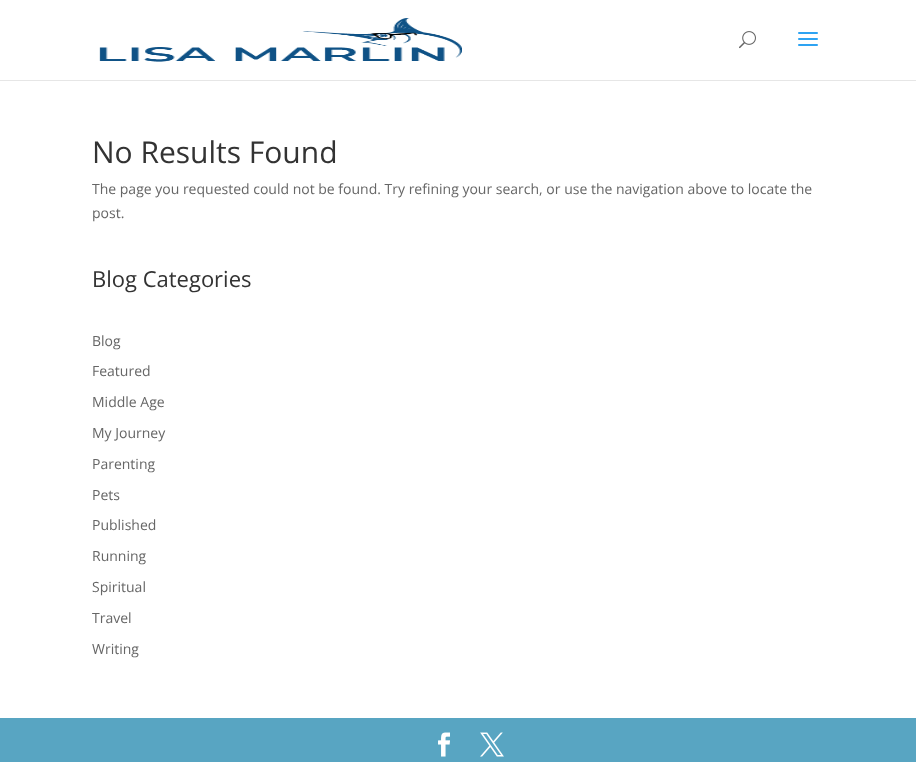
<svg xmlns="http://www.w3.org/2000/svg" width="916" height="762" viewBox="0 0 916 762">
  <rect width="100%" height="100%" fill="#ffffff"/>
  <rect x="0" y="80" width="916" height="1" fill="#e6e6e6"/>
  <image x="99" y="18" width="363" height="44" href="img1.png"/>
  <image x="739" y="31" width="17" height="18" href="img2.png"/>
  <image x="798" y="32" width="20" height="14" href="img3.png"/>
  <text x="92" y="163" font-family="Open Sans" font-size="30" fill="#333333">No Results Found</text>
  <text x="92" y="194" font-family="Open Sans" font-size="14" fill="#666666">The page you requested could not be found. Try refining your search, or use the navigation above to locate the</text>
  <text x="92" y="218" font-family="Open Sans" font-size="14" fill="#666666">post.</text>
  <text x="92" y="287" font-family="Open Sans" font-size="22" fill="#333333">Blog Categories</text>
  <text x="92" y="346" font-family="Open Sans" font-size="14" fill="#666666">Blog</text>
  <text x="92" y="376" font-family="Open Sans" font-size="14" fill="#666666">Featured</text>
  <text x="92" y="407" font-family="Open Sans" font-size="14" fill="#666666">Middle Age</text>
  <text x="92" y="438" font-family="Open Sans" font-size="14" fill="#666666">My Journey</text>
  <text x="92" y="469" font-family="Open Sans" font-size="14" fill="#666666">Parenting</text>
  <text x="92" y="500" font-family="Open Sans" font-size="14" fill="#666666">Pets</text>
  <text x="92" y="530" font-family="Open Sans" font-size="14" fill="#666666">Published</text>
  <text x="92" y="561" font-family="Open Sans" font-size="14" fill="#666666">Running</text>
  <text x="92" y="592" font-family="Open Sans" font-size="14" fill="#666666">Spiritual</text>
  <text x="92" y="623" font-family="Open Sans" font-size="14" fill="#666666">Travel</text>
  <text x="92" y="654" font-family="Open Sans" font-size="14" fill="#666666">Writing</text>
  <rect x="0" y="718" width="916" height="44" fill="#58a5c2"/>
  <image x="438" y="732" width="12" height="25" href="img4.png"/>
  <image x="480" y="732" width="24" height="25" href="img5.png"/>
</svg>
